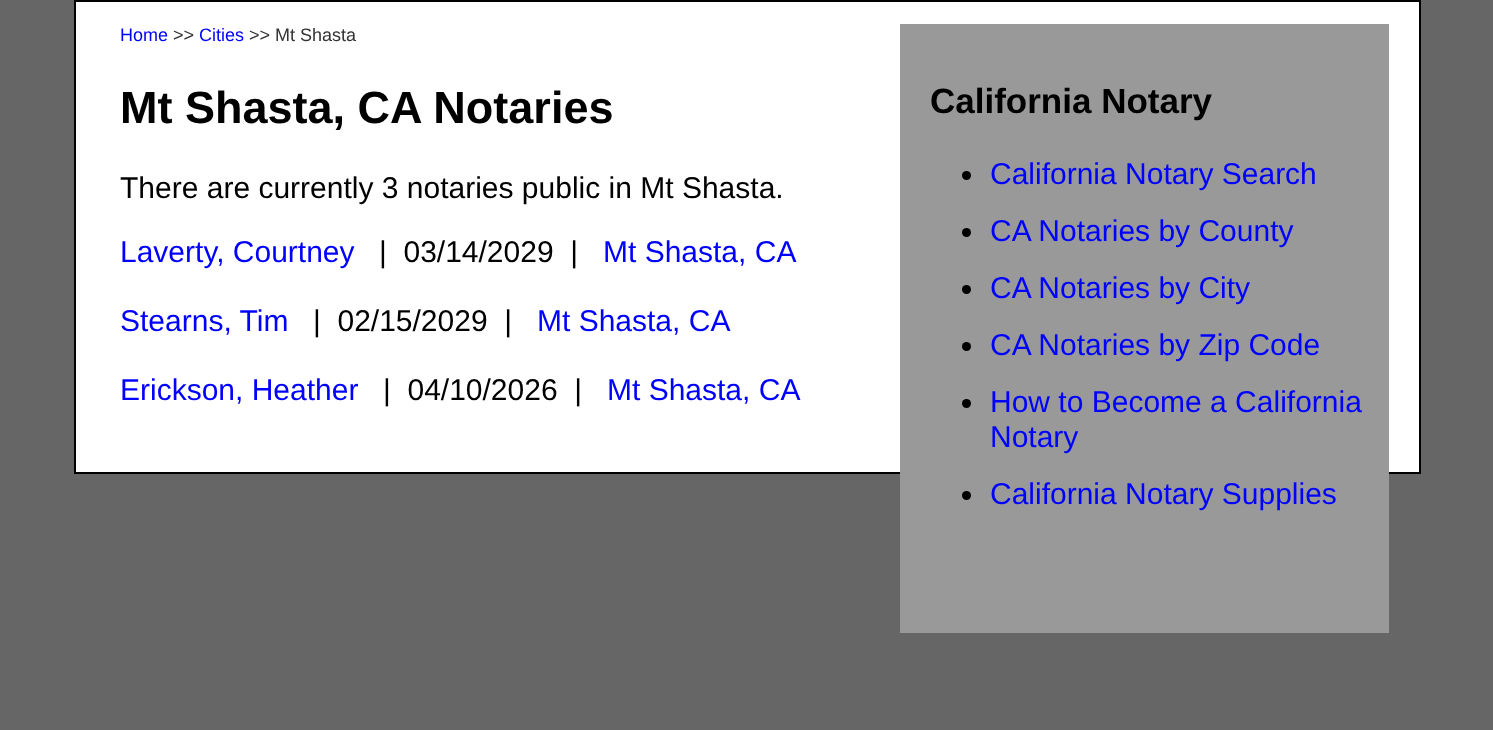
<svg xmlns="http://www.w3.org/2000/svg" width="1493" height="730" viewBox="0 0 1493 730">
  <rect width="100%" height="100%" fill="#666666"/>
  <rect x="75" y="1" width="1345" height="472" fill="#ffffff" stroke="#000000" stroke-width="2"/>
  <text x="120" y="41" font-family="Liberation Sans" font-size="18" fill="#0000ff">Home</text>
  <text x="173" y="41" font-family="Liberation Sans" font-size="18" fill="#333333">&gt;&gt;</text>
  <text x="199" y="41" font-family="Liberation Sans" font-size="18" fill="#0000ff">Cities</text>
  <text x="249" y="41" font-family="Liberation Sans" font-size="18" fill="#333333">&gt;&gt; Mt Shasta</text>
  <text x="120" y="123" font-family="Liberation Sans" font-size="45" font-weight="bold" fill="#000000">Mt Shasta, CA Notaries</text>
  <text x="120" y="198" font-family="Liberation Sans" font-size="30" fill="#000000">There are currently 3 notaries public in Mt Shasta.</text>
  <text x="120" y="262" font-family="Liberation Sans" font-size="30" fill="#0000ff">Laverty, Courtney</text>
  <text x="379" y="262" font-family="Liberation Sans" font-size="30" fill="#000000" xml:space="preserve">|  03/14/2029  |</text>
  <text x="603" y="262" font-family="Liberation Sans" font-size="30" fill="#0000ff">Mt Shasta, CA</text>
  <text x="120" y="331" font-family="Liberation Sans" font-size="30" fill="#0000ff">Stearns, Tim</text>
  <text x="313" y="331" font-family="Liberation Sans" font-size="30" fill="#000000" xml:space="preserve">|  02/15/2029  |</text>
  <text x="537" y="331" font-family="Liberation Sans" font-size="30" fill="#0000ff">Mt Shasta, CA</text>
  <text x="120" y="400" font-family="Liberation Sans" font-size="30" fill="#0000ff">Erickson, Heather</text>
  <text x="383" y="400" font-family="Liberation Sans" font-size="30" fill="#000000" xml:space="preserve">|  04/10/2026  |</text>
  <text x="607" y="400" font-family="Liberation Sans" font-size="30" fill="#0000ff">Mt Shasta, CA</text>
  <rect x="900" y="24" width="489" height="609" fill="#999999"/>
  <text x="930" y="113" font-family="Liberation Sans" font-size="35" font-weight="bold" fill="#000000">California Notary</text>
  <circle cx="966.5" cy="175.5" r="4.5" fill="#000000"/>
  <text x="990" y="184" font-family="Liberation Sans" font-size="30" fill="#0000ff">California Notary Search</text>
  <circle cx="966.5" cy="232.5" r="4.5" fill="#000000"/>
  <text x="990" y="241" font-family="Liberation Sans" font-size="30" fill="#0000ff">CA Notaries by County</text>
  <circle cx="966.5" cy="289.5" r="4.5" fill="#000000"/>
  <text x="990" y="298" font-family="Liberation Sans" font-size="30" fill="#0000ff">CA Notaries by City</text>
  <circle cx="966.5" cy="346.5" r="4.5" fill="#000000"/>
  <text x="990" y="355" font-family="Liberation Sans" font-size="30" fill="#0000ff">CA Notaries by Zip Code</text>
  <circle cx="966.5" cy="403.5" r="4.5" fill="#000000"/>
  <text x="990" y="412" font-family="Liberation Sans" font-size="30" fill="#0000ff">How to Become a California</text>
  <text x="990" y="447" font-family="Liberation Sans" font-size="30" fill="#0000ff">Notary</text>
  <circle cx="966.5" cy="495.5" r="4.5" fill="#000000"/>
  <text x="990" y="504" font-family="Liberation Sans" font-size="30" fill="#0000ff">California Notary Supplies</text>
</svg>
